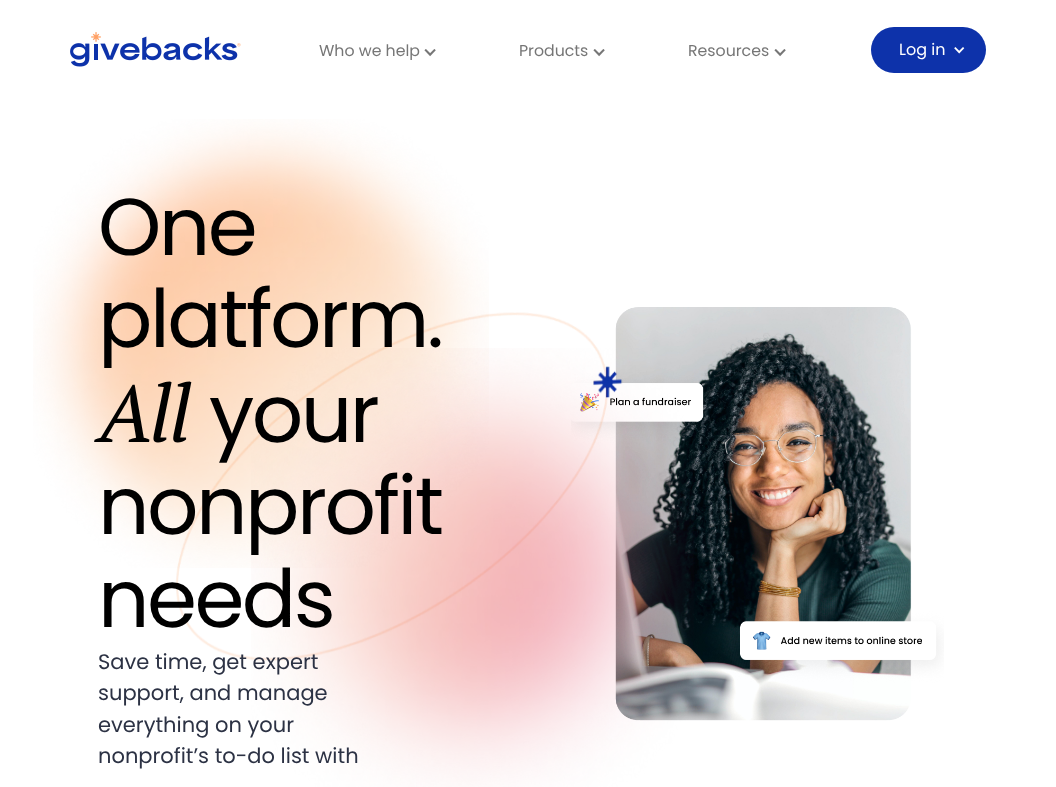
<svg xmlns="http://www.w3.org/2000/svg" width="1056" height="787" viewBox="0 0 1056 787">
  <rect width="100%" height="100%" fill="#ffffff"/>
  <image x="70" y="32" width="171" height="35" href="img1.png"/>
  <text x="319" y="56" font-family="Poppins" font-size="15.75" fill="#767676">Who we help</text>
  <image x="424" y="49" width="12" height="8" href="img2.png"/>
  <text x="519" y="56" font-family="Poppins" font-size="15.75" fill="#767676">Products</text>
  <image x="593" y="49" width="12" height="8" href="img2.png"/>
  <text x="688" y="56" font-family="Poppins" font-size="15.75" fill="#767676">Resources</text>
  <image x="774" y="49" width="12" height="8" href="img2.png"/>
  <rect x="871" y="27" width="115" height="46" rx="23" fill="#0d32aa"/>
  <text x="899" y="55" font-family="Poppins" font-size="16" fill="#ffffff">Log in</text>
  <image x="954" y="47" width="11" height="7" href="img3.png"/>
  <image x="571" y="307" width="373" height="414" href="img7.png"/>
  <image x="175" y="312" width="448" height="349" href="img5.png"/>
  <image x="33" y="119" width="456" height="449" href="img4.png"/>
  <image x="251" y="348" width="443" height="439" href="img6.png"/>
  <text x="98" y="255" font-family="Poppins" font-size="80.5" letter-spacing="-2.5" fill="#000000">One</text>
  <text x="98" y="347" font-family="Poppins" font-size="80.5" letter-spacing="-2.5" fill="#000000">platform.</text>
  <text x="98" y="442" font-family="PT Serif" font-size="80.5" font-style="italic" letter-spacing="-2.5" fill="#000000">All</text>
  <text x="209" y="442" font-family="Poppins" font-size="80.5" letter-spacing="-2.5" fill="#000000">your</text>
  <text x="98" y="534" font-family="Poppins" font-size="80.5" letter-spacing="-2.5" fill="#000000">nonprofit</text>
  <text x="98" y="627" font-family="Poppins" font-size="80.5" letter-spacing="-2.5" fill="#000000">needs</text>
  <text x="98" y="669" font-family="Poppins" font-size="21" fill="#2c3244">Save time, get expert</text>
  <text x="98" y="700" font-family="Poppins" font-size="21" fill="#2c3244">support, and manage</text>
  <text x="98" y="732" font-family="Poppins" font-size="21" fill="#2c3244">everything on your</text>
  <text x="98" y="763" font-family="Poppins" font-size="21" fill="#2c3244">nonprofit’s to-do list with</text>
</svg>
